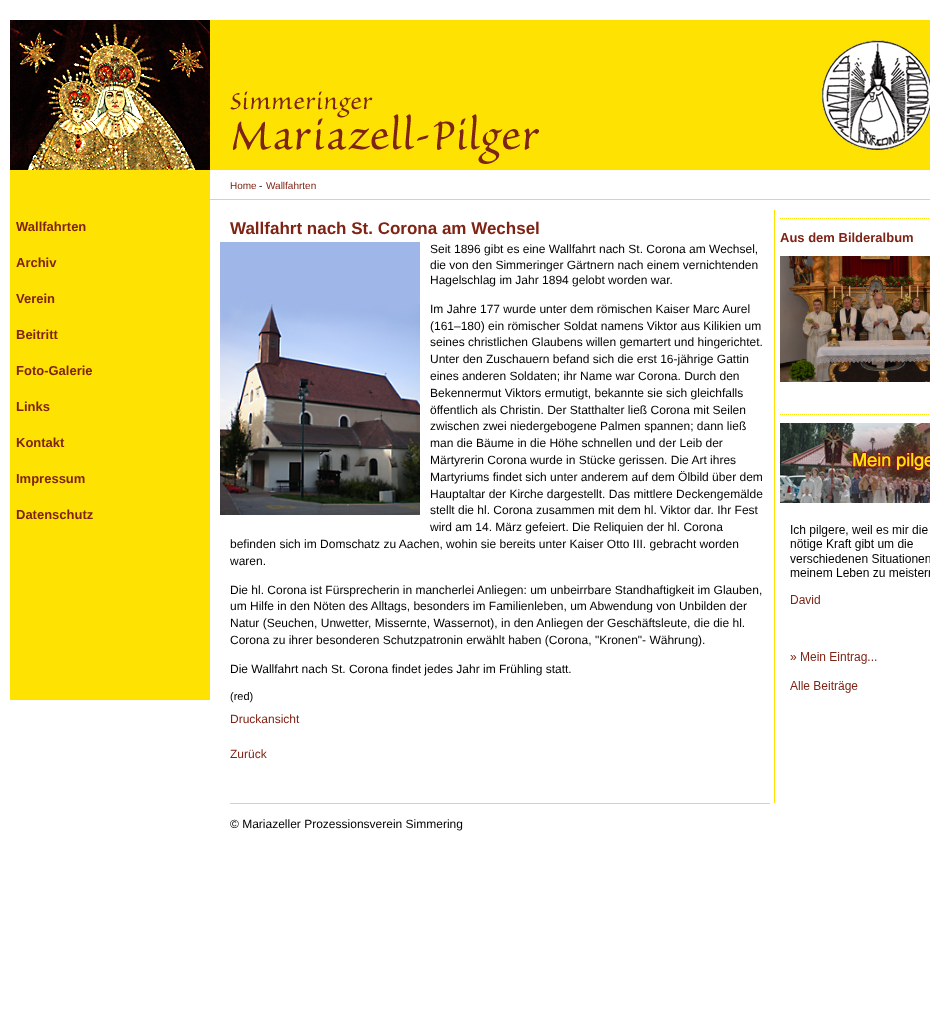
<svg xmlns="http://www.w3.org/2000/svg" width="930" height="1022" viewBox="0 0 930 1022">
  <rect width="100%" height="100%" fill="#ffffff"/>
  <image x="10" y="20" width="920" height="180" href="img1.png"/>
  <text x="230" y="189" font-family="Liberation Sans" font-size="10" fill="#7f2314">Home</text>
  <text x="259" y="189" font-family="Liberation Sans" font-size="10" fill="#000000">-</text>
  <text x="266" y="189" font-family="Liberation Sans" font-size="10" fill="#7f2314">Wallfahrten</text>
  <rect x="10" y="200" width="200" height="500" fill="#fee202"/>
  <text x="16" y="231" font-family="Liberation Sans" font-size="13" font-weight="bold" fill="#7f2314">Wallfahrten</text>
  <text x="16" y="267" font-family="Liberation Sans" font-size="13" font-weight="bold" fill="#7f2314">Archiv</text>
  <text x="16" y="303" font-family="Liberation Sans" font-size="13" font-weight="bold" fill="#7f2314">Verein</text>
  <text x="16" y="339" font-family="Liberation Sans" font-size="13" font-weight="bold" fill="#7f2314">Beitritt</text>
  <text x="16" y="375" font-family="Liberation Sans" font-size="13" font-weight="bold" fill="#7f2314">Foto-Galerie</text>
  <text x="16" y="411" font-family="Liberation Sans" font-size="13" font-weight="bold" fill="#7f2314">Links</text>
  <text x="16" y="447" font-family="Liberation Sans" font-size="13" font-weight="bold" fill="#7f2314">Kontakt</text>
  <text x="16" y="483" font-family="Liberation Sans" font-size="13" font-weight="bold" fill="#7f2314">Impressum</text>
  <text x="16" y="519" font-family="Liberation Sans" font-size="13" font-weight="bold" fill="#7f2314">Datenschutz</text>
  <text x="230" y="234" font-family="Liberation Sans" font-size="17" font-weight="bold" fill="#7f2314">Wallfahrt nach St. Corona am Wechsel</text>
  <image x="220" y="242" width="200" height="273" href="img2.png"/>
  <text x="430" y="253" font-family="Liberation Sans" font-size="12" fill="#000000">Seit 1896 gibt es eine Wallfahrt nach St. Corona am Wechsel,</text>
  <text x="430" y="269" font-family="Liberation Sans" font-size="12" fill="#000000">die von den Simmeringer Gärtnern nach einem vernichtenden</text>
  <text x="430" y="284" font-family="Liberation Sans" font-size="12" fill="#000000">Hagelschlag im Jahr 1894 gelobt worden war.</text>
  <text x="430" y="313" font-family="Liberation Sans" font-size="12" fill="#000000">Im Jahre 177 wurde unter dem römischen Kaiser Marc Aurel</text>
  <text x="430" y="330" font-family="Liberation Sans" font-size="12" fill="#000000">(161–180) ein römischer Soldat namens Viktor aus Kilikien um</text>
  <text x="430" y="346" font-family="Liberation Sans" font-size="12" fill="#000000">seines christlichen Glaubens willen gemartert und hingerichtet.</text>
  <text x="430" y="363" font-family="Liberation Sans" font-size="12" fill="#000000">Unter den Zuschauern befand sich die erst 16-jährige Gattin</text>
  <text x="430" y="380" font-family="Liberation Sans" font-size="12" fill="#000000">eines anderen Soldaten; ihr Name war Corona. Durch den</text>
  <text x="430" y="397" font-family="Liberation Sans" font-size="12" fill="#000000">Bekennermut Viktors ermutigt, bekannte sie sich gleichfalls</text>
  <text x="430" y="414" font-family="Liberation Sans" font-size="12" fill="#000000">öffentlich als Christin. Der Statthalter ließ Corona mit Seilen</text>
  <text x="430" y="430" font-family="Liberation Sans" font-size="12" fill="#000000">zwischen zwei niedergebogene Palmen spannen; dann ließ</text>
  <text x="430" y="447" font-family="Liberation Sans" font-size="12" fill="#000000">man die Bäume in die Höhe schnellen und der Leib der</text>
  <text x="430" y="464" font-family="Liberation Sans" font-size="12" fill="#000000">Märtyrerin Corona wurde in Stücke gerissen. Die Art ihres</text>
  <text x="430" y="481" font-family="Liberation Sans" font-size="12" fill="#000000">Martyriums findet sich unter anderem auf dem Ölbild über dem</text>
  <text x="430" y="498" font-family="Liberation Sans" font-size="12" fill="#000000">Hauptaltar der Kirche dargestellt. Das mittlere Deckengemälde</text>
  <text x="430" y="514" font-family="Liberation Sans" font-size="12" fill="#000000">stellt die hl. Corona zusammen mit dem hl. Viktor dar. Ihr Fest</text>
  <text x="430" y="531" font-family="Liberation Sans" font-size="12" fill="#000000">wird am 14. März gefeiert. Die Reliquien der hl. Corona</text>
  <text x="230" y="548" font-family="Liberation Sans" font-size="12" fill="#000000">befinden sich im Domschatz zu Aachen, wohin sie bereits unter Kaiser Otto III. gebracht worden</text>
  <text x="230" y="565" font-family="Liberation Sans" font-size="12" fill="#000000">waren.</text>
  <text x="230" y="594" font-family="Liberation Sans" font-size="12" fill="#000000">Die hl. Corona ist Fürsprecherin in mancherlei Anliegen: um unbeirrbare Standhaftigkeit im Glauben,</text>
  <text x="230" y="610" font-family="Liberation Sans" font-size="12" fill="#000000">um Hilfe in den Nöten des Alltags, besonders im Familienleben, um Abwendung von Unbilden der</text>
  <text x="230" y="627" font-family="Liberation Sans" font-size="12" fill="#000000">Natur (Seuchen, Unwetter, Missernte, Wassernot), in den Anliegen der Geschäftsleute, die die hl.</text>
  <text x="230" y="644" font-family="Liberation Sans" font-size="12" fill="#000000">Corona zu ihrer besonderen Schutzpatronin erwählt haben (Corona, "Kronen"- Währung).</text>
  <text x="230" y="673" font-family="Liberation Sans" font-size="12" fill="#000000">Die Wallfahrt nach St. Corona findet jedes Jahr im Frühling statt.</text>
  <text x="230" y="700" font-family="Liberation Sans" font-size="11" fill="#000000">(red)</text>
  <text x="230" y="723" font-family="Liberation Sans" font-size="12" fill="#7f2314">Druckansicht</text>
  <text x="230" y="758" font-family="Liberation Sans" font-size="12" fill="#7f2314">Zurück</text>
  <rect x="774" y="210" width="1" height="593" fill="#fee202"/>
  <path d="M780 218.5H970" fill="none" stroke="#fee202" stroke-dasharray="1 1"/>
  <text x="780" y="242" font-family="Liberation Sans" font-size="13" font-weight="bold" fill="#7f2314">Aus dem Bilderalbum</text>
  <image x="780" y="256" width="150" height="126" href="img3.png"/>
  <path d="M780 414.5H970" fill="none" stroke="#fee202" stroke-dasharray="1 1"/>
  <image x="780" y="423" width="150" height="80" href="img4.png"/>
  <image x="790" y="525" width="140" height="168" href="img5.png"/>
  <rect x="230" y="803" width="540" height="1" fill="#fee202"/>
  <text x="230" y="828" font-family="Liberation Sans" font-size="12" fill="#000000">© Mariazeller Prozessionsverein Simmering</text>
</svg>
